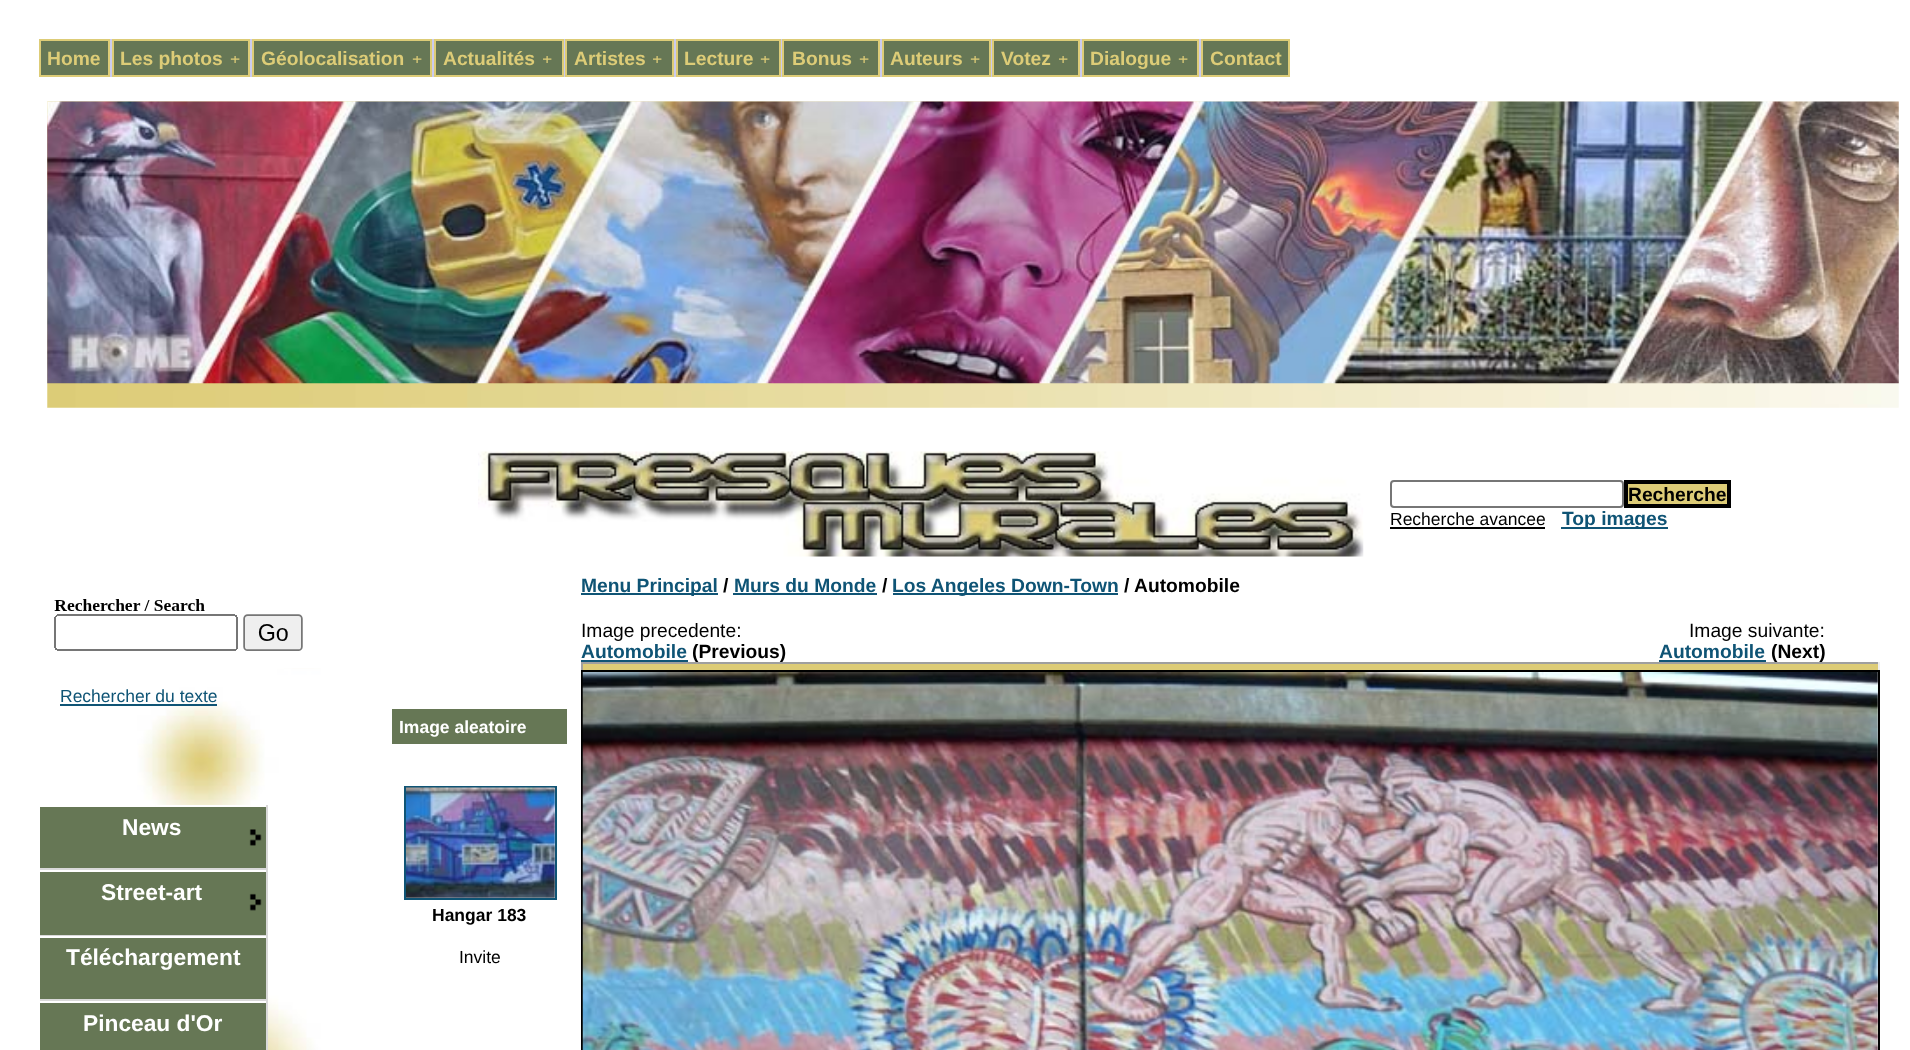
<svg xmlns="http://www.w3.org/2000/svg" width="1910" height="1050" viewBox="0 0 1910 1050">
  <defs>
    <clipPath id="clip1"><rect x="229" y="56" width="13" height="7"/></clipPath>
    <clipPath id="clip2"><rect x="411" y="56" width="13" height="7"/></clipPath>
    <clipPath id="clip3"><rect x="543" y="56" width="12" height="7"/></clipPath>
    <clipPath id="clip4"><rect x="653" y="56" width="12" height="7"/></clipPath>
    <clipPath id="clip5"><rect x="760" y="56" width="12" height="7"/></clipPath>
    <clipPath id="clip6"><rect x="859" y="56" width="13" height="7"/></clipPath>
    <clipPath id="clip7"><rect x="970" y="56" width="12" height="7"/></clipPath>
    <clipPath id="clip8"><rect x="1059" y="56" width="12" height="7"/></clipPath>
    <clipPath id="clip9"><rect x="1178" y="56" width="12" height="7"/></clipPath>
  </defs>
  <rect width="100%" height="100%" fill="#ffffff"/>
  <rect x="110" y="39" width="2" height="38" fill="#cbcbef"/>
  <rect x="40" y="40" width="69" height="36" fill="#667755" stroke="#ddcc77" stroke-width="2"/>
  <text x="47" y="65" font-family="Liberation Sans" font-size="19.25" font-weight="bold" fill="#ddcc77">Home</text>
  <rect x="250" y="39" width="2" height="38" fill="#cbcbef"/>
  <rect x="113" y="40" width="136" height="36" fill="#667755" stroke="#ddcc77" stroke-width="2"/>
  <text x="120" y="65" font-family="Liberation Sans" font-size="19.25" font-weight="bold" fill="#ddcc77">Les photos</text>
  <g clip-path="url(#clip1)">
    <text x="230" y="65" font-family="Liberation Sans" font-size="17.5" fill="#ddcc77">+</text>
  </g>
  <rect x="432" y="39" width="2" height="38" fill="#cbcbef"/>
  <rect x="253" y="40" width="178" height="36" fill="#667755" stroke="#ddcc77" stroke-width="2"/>
  <text x="261" y="65" font-family="Liberation Sans" font-size="19.25" font-weight="bold" fill="#ddcc77">Géolocalisation</text>
  <g clip-path="url(#clip2)">
    <text x="412" y="65" font-family="Liberation Sans" font-size="17.5" fill="#ddcc77">+</text>
  </g>
  <rect x="564" y="39" width="1" height="38" fill="#cbcbef"/>
  <rect x="435" y="40" width="128" height="36" fill="#667755" stroke="#ddcc77" stroke-width="2"/>
  <text x="443" y="65" font-family="Liberation Sans" font-size="19.25" font-weight="bold" fill="#ddcc77">Actualités</text>
  <g clip-path="url(#clip3)">
    <text x="542" y="65" font-family="Liberation Sans" font-size="17.5" fill="#ddcc77">+</text>
  </g>
  <rect x="674" y="39" width="2" height="38" fill="#cbcbef"/>
  <rect x="566" y="40" width="107" height="36" fill="#667755" stroke="#ddcc77" stroke-width="2"/>
  <text x="574" y="65" font-family="Liberation Sans" font-size="19.25" font-weight="bold" fill="#ddcc77">Artistes</text>
  <g clip-path="url(#clip4)">
    <text x="652" y="65" font-family="Liberation Sans" font-size="17.5" fill="#ddcc77">+</text>
  </g>
  <rect x="781" y="39" width="1" height="38" fill="#cbcbef"/>
  <rect x="677" y="40" width="103" height="36" fill="#667755" stroke="#ddcc77" stroke-width="2"/>
  <text x="684" y="65" font-family="Liberation Sans" font-size="19.25" font-weight="bold" fill="#ddcc77">Lecture</text>
  <g clip-path="url(#clip5)">
    <text x="760" y="65" font-family="Liberation Sans" font-size="17.5" fill="#ddcc77">+</text>
  </g>
  <rect x="880" y="39" width="2" height="38" fill="#cbcbef"/>
  <rect x="783" y="40" width="96" height="36" fill="#667755" stroke="#ddcc77" stroke-width="2"/>
  <text x="792" y="65" font-family="Liberation Sans" font-size="19.25" font-weight="bold" fill="#ddcc77">Bonus</text>
  <g clip-path="url(#clip6)">
    <text x="859" y="65" font-family="Liberation Sans" font-size="17.5" fill="#ddcc77">+</text>
  </g>
  <rect x="991" y="39" width="1" height="38" fill="#cbcbef"/>
  <rect x="883" y="40" width="107" height="36" fill="#667755" stroke="#ddcc77" stroke-width="2"/>
  <text x="890" y="65" font-family="Liberation Sans" font-size="19.25" font-weight="bold" fill="#ddcc77">Auteurs</text>
  <g clip-path="url(#clip7)">
    <text x="970" y="65" font-family="Liberation Sans" font-size="17.5" fill="#ddcc77">+</text>
  </g>
  <rect x="1080" y="39" width="2" height="38" fill="#cbcbef"/>
  <rect x="993" y="40" width="86" height="36" fill="#667755" stroke="#ddcc77" stroke-width="2"/>
  <text x="1001" y="65" font-family="Liberation Sans" font-size="19.25" font-weight="bold" fill="#ddcc77">Votez</text>
  <g clip-path="url(#clip8)">
    <text x="1058" y="65" font-family="Liberation Sans" font-size="17.5" fill="#ddcc77">+</text>
  </g>
  <rect x="1199" y="39" width="2" height="38" fill="#cbcbef"/>
  <rect x="1083" y="40" width="115" height="36" fill="#667755" stroke="#ddcc77" stroke-width="2"/>
  <text x="1090" y="65" font-family="Liberation Sans" font-size="19.25" font-weight="bold" fill="#ddcc77">Dialogue</text>
  <g clip-path="url(#clip9)">
    <text x="1178" y="65" font-family="Liberation Sans" font-size="17.5" fill="#ddcc77">+</text>
  </g>
  <rect x="1202" y="40" width="87" height="36" fill="#667755" stroke="#ddcc77" stroke-width="2"/>
  <text x="1210" y="65" font-family="Liberation Sans" font-size="19.25" font-weight="bold" fill="#ddcc77">Contact</text>
  <image x="47" y="101" width="1852" height="307" href="img1.png"/>
  <image x="47" y="101" width="1852" height="283" href="img2.png"/>
  <image x="478" y="451" width="886" height="106" href="img3.png"/>
  <rect x="1391" y="481" width="232" height="26" rx="3" fill="none" stroke="#767676" stroke-width="2"/>
  <rect x="1626" y="482" width="103" height="24" fill="#ddcc77" stroke="#000000" stroke-width="4"/>
  <text x="1628" y="501" font-family="Liberation Sans" font-size="19.25" font-weight="bold" fill="#000000">Recherche</text>
  <text x="1390" y="525" font-family="Liberation Sans" font-size="17.5" fill="#000000">Recherche avancee</text>
  <rect x="1390" y="527" width="155" height="2" fill="#000000"/>
  <rect x="1561" y="527" width="107" height="2" fill="#0f5475"/>
  <text x="1562" y="525" font-family="Liberation Sans" font-size="19.25" font-weight="bold" fill="#0f5475">Top images</text>
  <rect x="581" y="593" width="137" height="2" fill="#0f5475"/>
  <text x="581" y="592" font-family="Liberation Sans" font-size="19.25" font-weight="bold" fill="#0f5475">Menu Principal</text>
  <text x="723" y="592" font-family="Liberation Sans" font-size="19.25" font-weight="bold" fill="#000000">/</text>
  <text x="734" y="592" font-family="Liberation Sans" font-size="19.25" font-weight="bold" fill="#0f5475">Murs du Monde</text>
  <rect x="733" y="593" width="144" height="2" fill="#0f5475"/>
  <text x="882" y="592" font-family="Liberation Sans" font-size="19.25" font-weight="bold" fill="#000000">/</text>
  <rect x="893" y="593" width="225" height="2" fill="#0f5475"/>
  <text x="892" y="592" font-family="Liberation Sans" font-size="19.25" font-weight="bold" fill="#0f5475">Los Angeles Down-Town</text>
  <text x="1124" y="592" font-family="Liberation Sans" font-size="19.25" font-weight="bold" fill="#000000">/ Automobile</text>
  <text x="581" y="637" font-family="Liberation Sans" font-size="19.25" fill="#000000">Image precedente:</text>
  <text x="581" y="658" font-family="Liberation Sans" font-size="19.25" font-weight="bold" fill="#0f5475">Automobile</text>
  <rect x="581" y="660" width="107" height="2" fill="#0f5475"/>
  <text x="692" y="658" font-family="Liberation Sans" font-size="19.25" font-weight="bold" fill="#000000">(Previous)</text>
  <text x="1689" y="637" font-family="Liberation Sans" font-size="19.25" fill="#000000">Image suivante:</text>
  <text x="1659" y="658" font-family="Liberation Sans" font-size="19.25" font-weight="bold" fill="#0f5475">Automobile</text>
  <rect x="1659" y="660" width="107" height="2" fill="#0f5475"/>
  <text x="1771" y="658" font-family="Liberation Sans" font-size="19.25" font-weight="bold" fill="#000000">(Next)</text>
  <rect x="581" y="664" width="1299" height="6" fill="#ddcc77"/>
  <rect x="581" y="662" width="1299" height="2" fill="#9f9f9f"/>
  <rect x="1878" y="662" width="2" height="8" fill="#eeeeee"/>
  <rect x="581" y="662" width="2" height="8" fill="#9f9f9f"/>
  <rect x="582" y="671" width="1297" height="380" fill="none" stroke="#000000" stroke-width="2"/>
  <image x="582" y="672" width="1296" height="378" href="img4.png"/>
  <image x="110" y="668" width="234" height="382" href="img5.png"/>
  <image x="54" y="584" width="290" height="84" href="img6.png"/>
  <text x="60" y="702" font-family="Liberation Sans" font-size="17.5" fill="#0f5475">Rechercher du texte</text>
  <rect x="60" y="704" width="157" height="2" fill="#0f5475"/>
  <rect x="40" y="807" width="226" height="61" fill="#667755"/>
  <image x="249" y="829" width="13" height="17" href="img7.png"/>
  <rect x="156" y="805" width="94" height="2" fill="#ffffff"/>
  <rect x="266" y="805" width="2" height="196" fill="#d9d9d9"/>
  <rect x="40" y="868" width="228" height="2" fill="#d9d9d9"/>
  <text x="122" y="835" font-family="Liberation Sans" font-size="22.75" font-weight="bold" fill="#ffffff">News</text>
  <rect x="40" y="872" width="226" height="63" fill="#667755"/>
  <image x="249" y="893" width="13" height="18" href="img8.png"/>
  <rect x="40" y="935" width="228" height="1" fill="#d9d9d9"/>
  <text x="101" y="900" font-family="Liberation Sans" font-size="22.75" font-weight="bold" fill="#ffffff">Street-art</text>
  <rect x="40" y="938" width="226" height="61" fill="#667755"/>
  <rect x="40" y="999" width="228" height="2" fill="#d9d9d9"/>
  <text x="66" y="965" font-family="Liberation Sans" font-size="22.75" font-weight="bold" fill="#ffffff">Téléchargement</text>
  <rect x="40" y="1003" width="226" height="47" fill="#667755"/>
  <rect x="181" y="1001" width="87" height="2" fill="#ffffff"/>
  <rect x="266" y="1001" width="2" height="49" fill="#d9d9d9"/>
  <text x="83" y="1031" font-family="Liberation Sans" font-size="22.75" font-weight="bold" fill="#ffffff">Pinceau d'Or</text>
  <rect x="392" y="709" width="175" height="35" fill="#667755"/>
  <text x="399" y="733" font-family="Liberation Sans" font-size="17.5" font-weight="bold" fill="#ffffff">Image aleatoire</text>
  <rect x="405" y="787" width="151" height="112" fill="none" stroke="#0f5475" stroke-width="2"/>
  <image x="406" y="787" width="149" height="111" href="img9.png"/>
  <text x="432" y="921" font-family="Liberation Sans" font-size="17.5" font-weight="bold" fill="#000000">Hangar 183</text>
  <text x="459" y="963" font-family="Liberation Sans" font-size="17.5" fill="#000000">Invite</text>
</svg>
